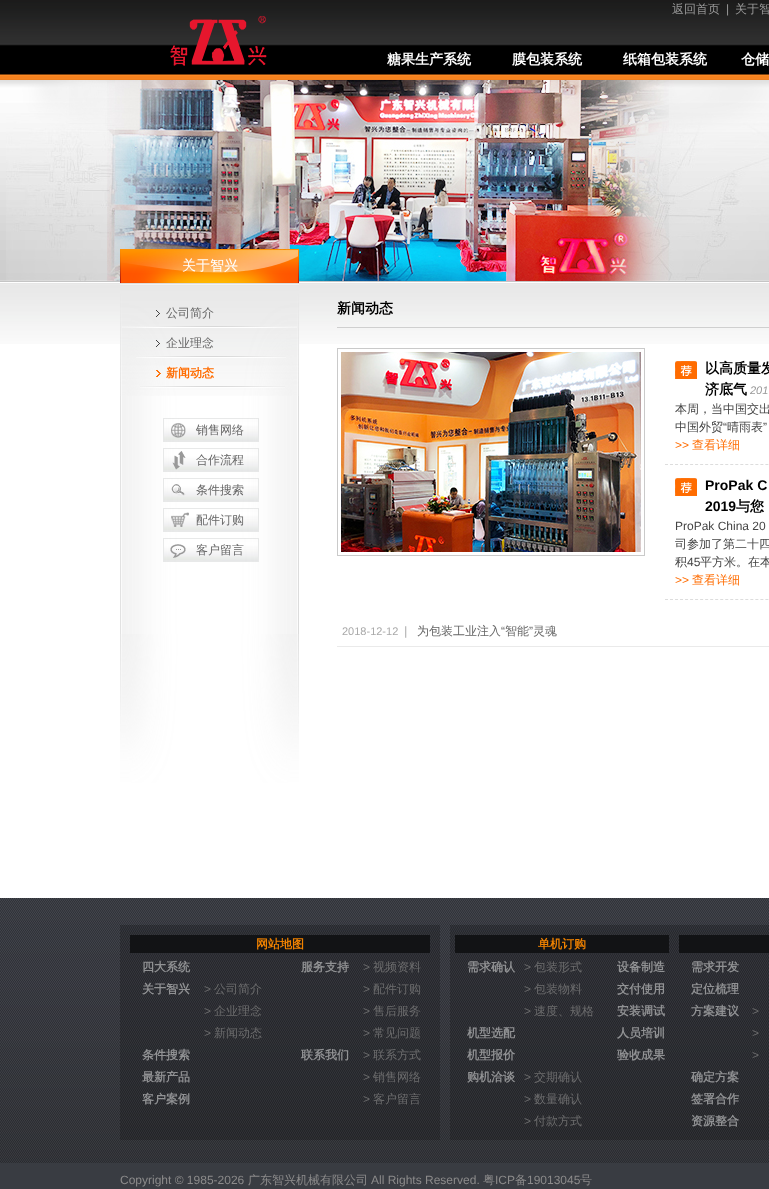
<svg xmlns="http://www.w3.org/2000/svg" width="769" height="1189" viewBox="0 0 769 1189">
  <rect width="100%" height="100%" fill="#ffffff"/>
  <image x="0" y="0" width="769" height="80" href="img1.png"/>
  <image x="170" y="16" width="97" height="50" href="img2.png"/>
  <text x="672" y="13" font-family="WenQuanYi Zen Hei" font-size="12" font-weight="500" fill="#999999">返回首页</text>
  <text x="726" y="13" font-family="Liberation Sans" font-size="12" fill="#999999">|</text>
  <text x="735" y="13" font-family="WenQuanYi Zen Hei" font-size="12" font-weight="500" fill="#999999">关于智</text>
  <text x="387" y="64" font-family="WenQuanYi Zen Hei" font-size="14" font-weight="bold" fill="#ffffff">糖果生产系统</text>
  <text x="512" y="64" font-family="WenQuanYi Zen Hei" font-size="14" font-weight="bold" fill="#ffffff">膜包装系统</text>
  <text x="623" y="64" font-family="WenQuanYi Zen Hei" font-size="14" font-weight="bold" fill="#ffffff">纸箱包装系统</text>
  <text x="741" y="64" font-family="WenQuanYi Zen Hei" font-size="14" font-weight="bold" fill="#ffffff">仓储</text>
  <image x="0" y="80" width="6" height="201" href="img3.png"/>
  <image x="6" y="80" width="763" height="201" href="img4.png"/>
  <rect x="0" y="281" width="769" height="1" fill="#c5c5c5"/>
  <image x="0" y="283" width="769" height="61" href="img5.png"/>
  <image x="120" y="396" width="179" height="238" href="img6.png"/>
  <image x="120" y="249" width="179" height="34" href="img7.png"/>
  <text x="182" y="270" font-family="WenQuanYi Zen Hei" font-size="14" font-weight="500" fill="#ffffff">关于智兴</text>
  <image x="120" y="283" width="179" height="113" href="img8.png"/>
  <image x="122" y="326" width="175" height="2" href="img9.png"/>
  <image x="156" y="310" width="4" height="7" href="img10.png"/>
  <text x="166" y="317" font-family="WenQuanYi Zen Hei" font-size="12" font-weight="500" fill="#666666">公司简介</text>
  <image x="136" y="356" width="150" height="2" href="img11.png"/>
  <image x="156" y="340" width="4" height="7" href="img12.png"/>
  <text x="166" y="347" font-family="WenQuanYi Zen Hei" font-size="12" font-weight="500" fill="#666666">企业理念</text>
  <image x="140" y="386" width="145" height="2" href="img13.png"/>
  <image x="156" y="370" width="5" height="7" href="img14.png"/>
  <text x="166" y="377" font-family="WenQuanYi Zen Hei" font-size="12" font-weight="bold" fill="#ff6c00">新闻动态</text>
  <image x="120" y="634" width="179" height="149" href="img15.png"/>
  <image x="163" y="418" width="96" height="24" href="img16.png"/>
  <text x="196" y="434" font-family="WenQuanYi Zen Hei" font-size="12" font-weight="500" fill="#666666">销售网络</text>
  <image x="163" y="448" width="96" height="24" href="img17.png"/>
  <text x="196" y="464" font-family="WenQuanYi Zen Hei" font-size="12" font-weight="500" fill="#666666">合作流程</text>
  <image x="163" y="478" width="96" height="24" href="img18.png"/>
  <text x="196" y="494" font-family="WenQuanYi Zen Hei" font-size="12" font-weight="500" fill="#666666">条件搜索</text>
  <image x="163" y="508" width="96" height="24" href="img19.png"/>
  <text x="196" y="524" font-family="WenQuanYi Zen Hei" font-size="12" font-weight="500" fill="#666666">配件订购</text>
  <image x="163" y="538" width="96" height="24" href="img20.png"/>
  <text x="196" y="554" font-family="WenQuanYi Zen Hei" font-size="12" font-weight="500" fill="#666666">客户留言</text>
  <rect x="337" y="327" width="432" height="1" fill="#cfcfcf"/>
  <text x="337" y="313" font-family="WenQuanYi Zen Hei" font-size="14" font-weight="bold" fill="#000000">新闻动态</text>
  <rect x="337.5" y="348.5" width="307" height="207" fill="none" stroke="#cacaca"/>
  <image x="341" y="352" width="300" height="200" href="img21.png"/>
  <path d="M665 464.5H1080" fill="none" stroke="#dddddd" stroke-dasharray="3 2.02"/>
  <image x="675" y="361" width="22" height="18" href="img22.png"/>
  <text x="705" y="373" font-family="WenQuanYi Zen Hei" font-size="14" font-weight="bold" fill="#000000">以高质量发</text>
  <text x="705" y="394" font-family="WenQuanYi Zen Hei" font-size="14" font-weight="bold" fill="#000000">济底气</text>
  <text x="750" y="394" font-family="Liberation Sans" font-size="11" font-style="italic" fill="#999999">201</text>
  <text x="675" y="413" font-family="WenQuanYi Zen Hei" font-size="12" font-weight="500" fill="#444444">本周，当中国交出</text>
  <text x="675" y="431" font-family="WenQuanYi Zen Hei" font-size="12" font-weight="500" fill="#444444">中国外贸</text>
  <text x="723" y="431" font-family="Liberation Sans" font-size="12" fill="#444444">“</text>
  <text x="727" y="431" font-family="WenQuanYi Zen Hei" font-size="12" font-weight="500" fill="#444444">晴雨表</text>
  <text x="763" y="431" font-family="Liberation Sans" font-size="12" fill="#444444">”</text>
  <text x="675" y="449" font-family="Liberation Sans" font-size="12" fill="#ff6c00">&gt;&gt;</text>
  <text x="692" y="449" font-family="WenQuanYi Zen Hei" font-size="12" font-weight="500" fill="#ff6c00">查看详细</text>
  <path d="M665 599.5H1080" fill="none" stroke="#dddddd" stroke-dasharray="3 2.02"/>
  <image x="675" y="478" width="22" height="18" href="img22.png"/>
  <text x="705" y="490" font-family="Liberation Sans" font-size="14" font-weight="bold" fill="#000000">ProPak C</text>
  <text x="705" y="511" font-family="Liberation Sans" font-size="14" font-weight="bold" fill="#000000">2019</text>
  <text x="736" y="511" font-family="WenQuanYi Zen Hei" font-size="14" font-weight="bold" fill="#000000">与您</text>
  <text x="675" y="530" font-family="Liberation Sans" font-size="12" fill="#444444">ProPak China 20</text>
  <text x="675" y="548" font-family="WenQuanYi Zen Hei" font-size="12" font-weight="500" fill="#444444">司参加了第二十四</text>
  <text x="675" y="566" font-family="WenQuanYi Zen Hei" font-size="12" font-weight="500" fill="#444444">积</text>
  <text x="687" y="566" font-family="Liberation Sans" font-size="12" fill="#444444">45</text>
  <text x="700" y="566" font-family="WenQuanYi Zen Hei" font-size="12" font-weight="500" fill="#444444">平方米。在本</text>
  <text x="675" y="584" font-family="Liberation Sans" font-size="12" fill="#ff6c00">&gt;&gt;</text>
  <text x="692" y="584" font-family="WenQuanYi Zen Hei" font-size="12" font-weight="500" fill="#ff6c00">查看详细</text>
  <rect x="337" y="646" width="432" height="1" fill="#eaeaea"/>
  <text x="342" y="635" font-family="Liberation Sans" font-size="11" fill="#a9a9a9">2018-12-12</text>
  <text x="404" y="635" font-family="Liberation Sans" font-size="12" font-style="italic" fill="#a9a9a9">|</text>
  <text x="417" y="635" font-family="WenQuanYi Zen Hei" font-size="12" font-weight="500" fill="#666666">为包装工业注入</text>
  <text x="501" y="635" font-family="Liberation Sans" font-size="12" fill="#666666">“</text>
  <text x="505" y="635" font-family="WenQuanYi Zen Hei" font-size="12" font-weight="500" fill="#666666">智能</text>
  <text x="529" y="635" font-family="Liberation Sans" font-size="12" fill="#666666">”</text>
  <text x="533" y="635" font-family="WenQuanYi Zen Hei" font-size="12" font-weight="500" fill="#666666">灵魂</text>
  <image x="0" y="898" width="769" height="265" href="img23.png"/>
  <image x="120" y="925" width="320" height="215" href="img24.png"/>
  <rect x="130" y="935" width="300" height="18" fill="#121315"/>
  <text x="256" y="948" font-family="WenQuanYi Zen Hei" font-size="12" font-weight="bold" fill="#f08200">网站地图</text>
  <text x="142" y="971" font-family="WenQuanYi Zen Hei" font-size="12" font-weight="bold" fill="#919294">四大系统</text>
  <text x="301" y="971" font-family="WenQuanYi Zen Hei" font-size="12" font-weight="bold" fill="#919294">服务支持</text>
  <text x="363" y="971" font-family="Liberation Sans" font-size="12" fill="#6c6c6d">&gt;</text>
  <text x="373" y="971" font-family="WenQuanYi Zen Hei" font-size="12" font-weight="500" fill="#6c6c6d">视频资料</text>
  <text x="142" y="993" font-family="WenQuanYi Zen Hei" font-size="12" font-weight="bold" fill="#919294">关于智兴</text>
  <text x="204" y="993" font-family="Liberation Sans" font-size="12" fill="#6c6c6d">&gt;</text>
  <text x="214" y="993" font-family="WenQuanYi Zen Hei" font-size="12" font-weight="500" fill="#6c6c6d">公司简介</text>
  <text x="363" y="993" font-family="Liberation Sans" font-size="12" fill="#6c6c6d">&gt;</text>
  <text x="373" y="993" font-family="WenQuanYi Zen Hei" font-size="12" font-weight="500" fill="#6c6c6d">配件订购</text>
  <text x="204" y="1015" font-family="Liberation Sans" font-size="12" fill="#6c6c6d">&gt;</text>
  <text x="214" y="1015" font-family="WenQuanYi Zen Hei" font-size="12" font-weight="500" fill="#6c6c6d">企业理念</text>
  <text x="363" y="1015" font-family="Liberation Sans" font-size="12" fill="#6c6c6d">&gt;</text>
  <text x="373" y="1015" font-family="WenQuanYi Zen Hei" font-size="12" font-weight="500" fill="#6c6c6d">售后服务</text>
  <text x="204" y="1037" font-family="Liberation Sans" font-size="12" fill="#6c6c6d">&gt;</text>
  <text x="214" y="1037" font-family="WenQuanYi Zen Hei" font-size="12" font-weight="500" fill="#6c6c6d">新闻动态</text>
  <text x="363" y="1037" font-family="Liberation Sans" font-size="12" fill="#6c6c6d">&gt;</text>
  <text x="373" y="1037" font-family="WenQuanYi Zen Hei" font-size="12" font-weight="500" fill="#6c6c6d">常见问题</text>
  <text x="142" y="1059" font-family="WenQuanYi Zen Hei" font-size="12" font-weight="bold" fill="#919294">条件搜索</text>
  <text x="301" y="1059" font-family="WenQuanYi Zen Hei" font-size="12" font-weight="bold" fill="#919294">联系我们</text>
  <text x="363" y="1059" font-family="Liberation Sans" font-size="12" fill="#6c6c6d">&gt;</text>
  <text x="373" y="1059" font-family="WenQuanYi Zen Hei" font-size="12" font-weight="500" fill="#6c6c6d">联系方式</text>
  <text x="142" y="1081" font-family="WenQuanYi Zen Hei" font-size="12" font-weight="bold" fill="#919294">最新产品</text>
  <text x="363" y="1081" font-family="Liberation Sans" font-size="12" fill="#6c6c6d">&gt;</text>
  <text x="373" y="1081" font-family="WenQuanYi Zen Hei" font-size="12" font-weight="500" fill="#6c6c6d">销售网络</text>
  <text x="142" y="1103" font-family="WenQuanYi Zen Hei" font-size="12" font-weight="bold" fill="#919294">客户案例</text>
  <text x="363" y="1103" font-family="Liberation Sans" font-size="12" fill="#6c6c6d">&gt;</text>
  <text x="373" y="1103" font-family="WenQuanYi Zen Hei" font-size="12" font-weight="500" fill="#6c6c6d">客户留言</text>
  <image x="450" y="925" width="319" height="215" href="img25.png"/>
  <rect x="455" y="935" width="214" height="18" fill="#121315"/>
  <text x="538" y="948" font-family="WenQuanYi Zen Hei" font-size="12" font-weight="bold" fill="#f08200">单机订购</text>
  <text x="467" y="971" font-family="WenQuanYi Zen Hei" font-size="12" font-weight="bold" fill="#919294">需求确认</text>
  <text x="524" y="971" font-family="Liberation Sans" font-size="12" fill="#6c6c6d">&gt;</text>
  <text x="534" y="971" font-family="WenQuanYi Zen Hei" font-size="12" font-weight="500" fill="#6c6c6d">包装形式</text>
  <text x="617" y="971" font-family="WenQuanYi Zen Hei" font-size="12" font-weight="bold" fill="#919294">设备制造</text>
  <text x="524" y="993" font-family="Liberation Sans" font-size="12" fill="#6c6c6d">&gt;</text>
  <text x="534" y="993" font-family="WenQuanYi Zen Hei" font-size="12" font-weight="500" fill="#6c6c6d">包装物料</text>
  <text x="617" y="993" font-family="WenQuanYi Zen Hei" font-size="12" font-weight="bold" fill="#919294">交付使用</text>
  <text x="524" y="1015" font-family="Liberation Sans" font-size="12" fill="#6c6c6d">&gt;</text>
  <text x="534" y="1015" font-family="WenQuanYi Zen Hei" font-size="12" font-weight="500" fill="#6c6c6d">速度、规格</text>
  <text x="617" y="1015" font-family="WenQuanYi Zen Hei" font-size="12" font-weight="bold" fill="#919294">安装调试</text>
  <text x="467" y="1037" font-family="WenQuanYi Zen Hei" font-size="12" font-weight="bold" fill="#919294">机型选配</text>
  <text x="617" y="1037" font-family="WenQuanYi Zen Hei" font-size="12" font-weight="bold" fill="#919294">人员培训</text>
  <text x="467" y="1059" font-family="WenQuanYi Zen Hei" font-size="12" font-weight="bold" fill="#919294">机型报价</text>
  <text x="617" y="1059" font-family="WenQuanYi Zen Hei" font-size="12" font-weight="bold" fill="#919294">验收成果</text>
  <text x="467" y="1081" font-family="WenQuanYi Zen Hei" font-size="12" font-weight="bold" fill="#919294">购机洽谈</text>
  <text x="524" y="1081" font-family="Liberation Sans" font-size="12" fill="#6c6c6d">&gt;</text>
  <text x="534" y="1081" font-family="WenQuanYi Zen Hei" font-size="12" font-weight="500" fill="#6c6c6d">交期确认</text>
  <text x="524" y="1103" font-family="Liberation Sans" font-size="12" fill="#6c6c6d">&gt;</text>
  <text x="534" y="1103" font-family="WenQuanYi Zen Hei" font-size="12" font-weight="500" fill="#6c6c6d">数量确认</text>
  <text x="524" y="1125" font-family="Liberation Sans" font-size="12" fill="#6c6c6d">&gt;</text>
  <text x="534" y="1125" font-family="WenQuanYi Zen Hei" font-size="12" font-weight="500" fill="#6c6c6d">付款方式</text>
  <rect x="679" y="935" width="90" height="18" fill="#121315"/>
  <text x="691" y="971" font-family="WenQuanYi Zen Hei" font-size="12" font-weight="bold" fill="#919294">需求开发</text>
  <text x="691" y="993" font-family="WenQuanYi Zen Hei" font-size="12" font-weight="bold" fill="#919294">定位梳理</text>
  <text x="691" y="1015" font-family="WenQuanYi Zen Hei" font-size="12" font-weight="bold" fill="#919294">方案建议</text>
  <text x="752" y="1015" font-family="Liberation Sans" font-size="12" fill="#6c6c6d">&gt;</text>
  <text x="752" y="1037" font-family="Liberation Sans" font-size="12" fill="#6c6c6d">&gt;</text>
  <text x="752" y="1059" font-family="Liberation Sans" font-size="12" fill="#6c6c6d">&gt;</text>
  <text x="691" y="1081" font-family="WenQuanYi Zen Hei" font-size="12" font-weight="bold" fill="#919294">确定方案</text>
  <text x="691" y="1103" font-family="WenQuanYi Zen Hei" font-size="12" font-weight="bold" fill="#919294">签署合作</text>
  <text x="691" y="1125" font-family="WenQuanYi Zen Hei" font-size="12" font-weight="bold" fill="#919294">资源整合</text>
  <rect x="0" y="1163" width="769" height="26" fill="#393c42"/>
  <text x="120" y="1184" font-family="Liberation Sans" font-size="12" fill="#8c8b8b">Copyright © 1985-2026</text>
  <text x="248" y="1184" font-family="WenQuanYi Zen Hei" font-size="12" font-weight="500" fill="#8c8b8b">广东智兴机械有限公司</text>
  <text x="371" y="1184" font-family="Liberation Sans" font-size="12" fill="#8c8b8b">All Rights Reserved.</text>
  <text x="483" y="1184" font-family="WenQuanYi Zen Hei" font-size="12" font-weight="500" fill="#8c8b8b">粤</text>
  <text x="495" y="1184" font-family="Liberation Sans" font-size="12" fill="#8c8b8b">ICP</text>
  <text x="515" y="1184" font-family="WenQuanYi Zen Hei" font-size="12" font-weight="500" fill="#8c8b8b">备</text>
  <text x="527" y="1184" font-family="Liberation Sans" font-size="12" fill="#8c8b8b">19013045</text>
  <text x="580" y="1184" font-family="WenQuanYi Zen Hei" font-size="12" font-weight="500" fill="#8c8b8b">号</text>
</svg>
